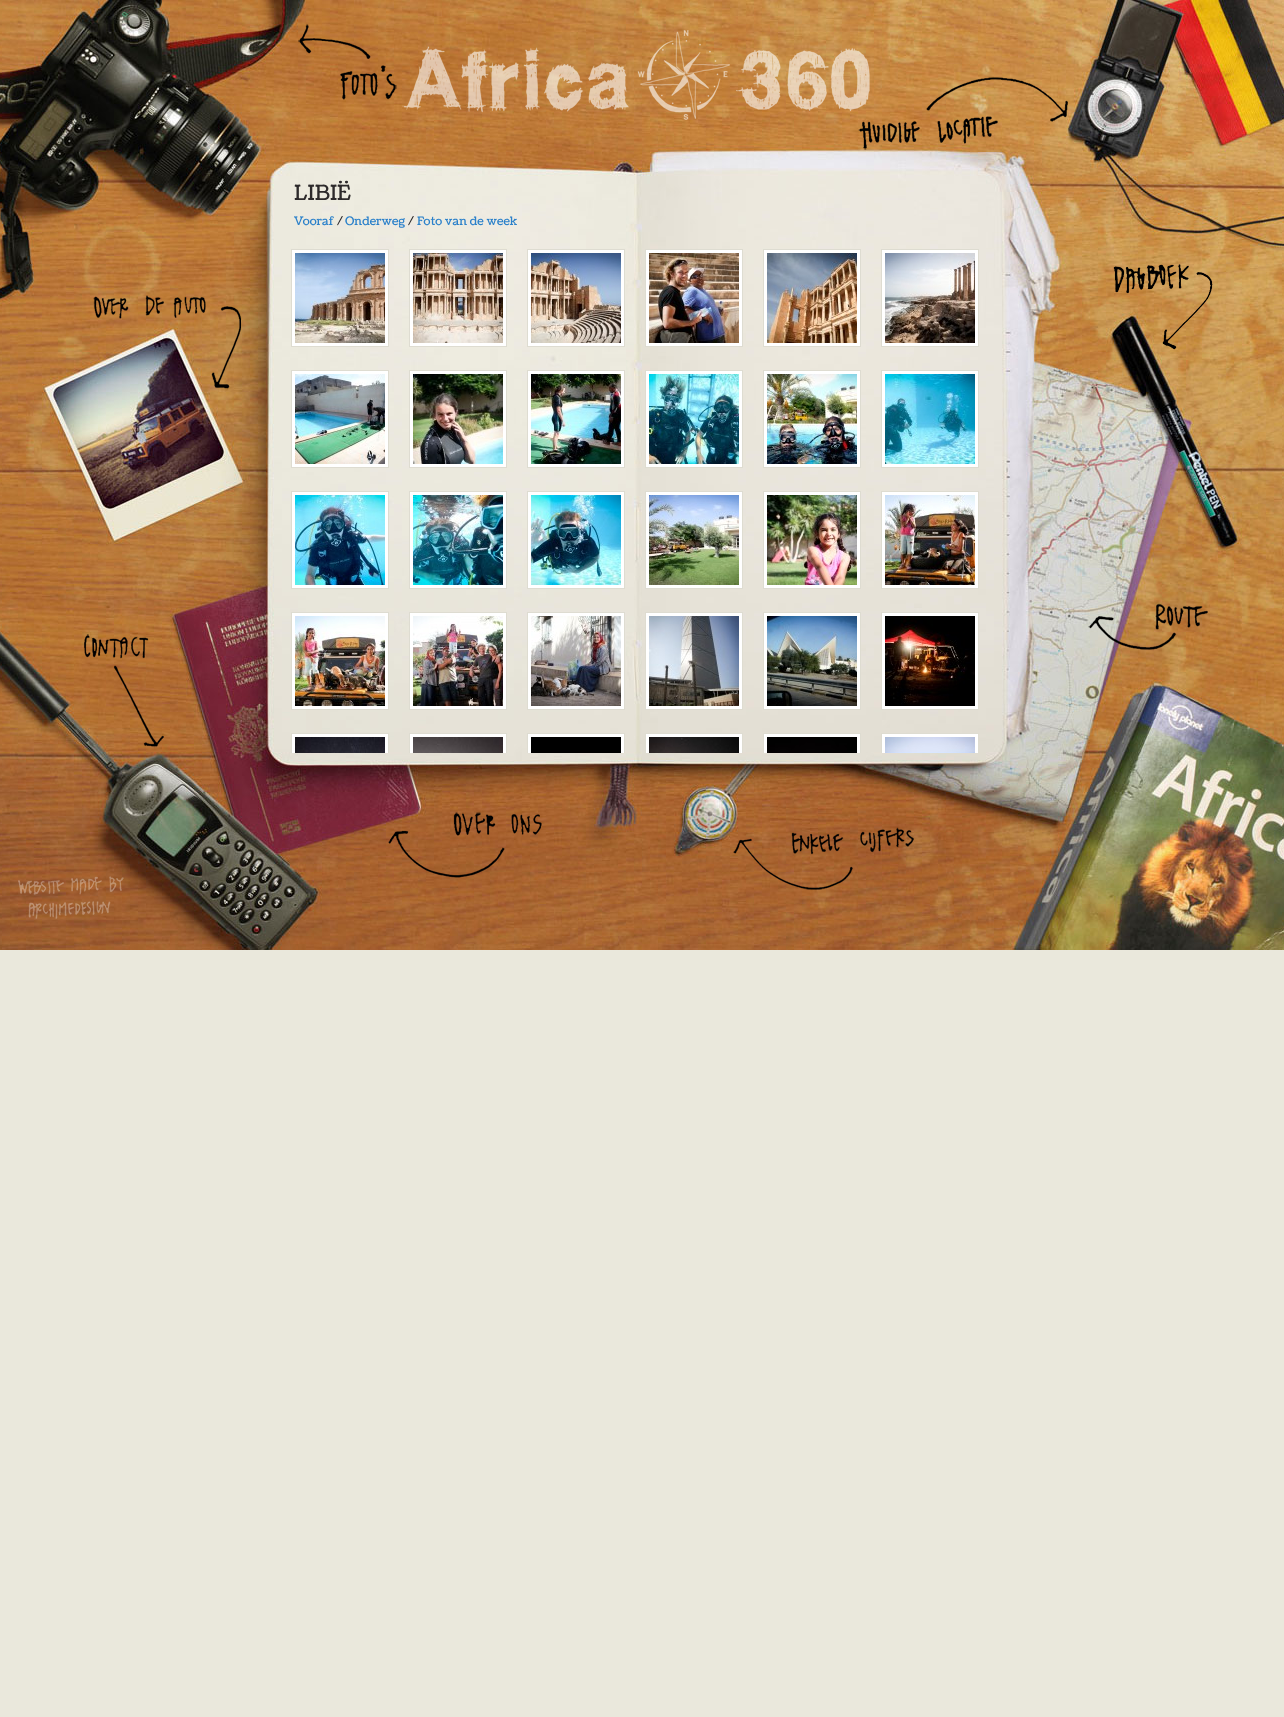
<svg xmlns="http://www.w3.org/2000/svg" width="1284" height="1717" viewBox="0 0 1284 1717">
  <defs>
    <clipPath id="clip1"><rect x="284" y="213" width="715" height="540"/></clipPath>
  </defs>
  <rect width="100%" height="100%" fill="#eae8dc"/>
  <image x="0" y="0" width="1284" height="950" href="img1.png"/>
  <image x="298" y="24" width="99" height="76" href="img2.png"/>
  <image x="402" y="30" width="468" height="90" href="img10.png"/>
  <image x="858" y="77" width="210" height="73" href="img3.png"/>
  <image x="93" y="295" width="148" height="95" href="img4.png"/>
  <image x="1113" y="264" width="100" height="86" href="img5.png"/>
  <image x="1088" y="603" width="120" height="47" href="img6.png"/>
  <image x="84" y="634" width="80" height="114" href="img7.png"/>
  <rect x="292" y="734" width="96" height="19" fill="#ffffff"/>
  <g clip-path="url(#clip1)">
    <rect x="291.5" y="733.5" width="97" height="97" fill="none" stroke="#dedcd1"/>
  </g>
  <rect x="410" y="734" width="96" height="19" fill="#ffffff"/>
  <g clip-path="url(#clip1)">
    <rect x="409.5" y="733.5" width="97" height="97" fill="none" stroke="#dedcd1"/>
  </g>
  <rect x="528" y="734" width="96" height="19" fill="#ffffff"/>
  <g clip-path="url(#clip1)">
    <rect x="527.5" y="733.5" width="97" height="97" fill="none" stroke="#dedcd1"/>
  </g>
  <image x="388" y="812" width="154" height="66" href="img8.png"/>
  <rect x="646" y="734" width="96" height="19" fill="#ffffff"/>
  <g clip-path="url(#clip1)">
    <rect x="645.5" y="733.5" width="97" height="97" fill="none" stroke="#dedcd1"/>
  </g>
  <rect x="764" y="734" width="96" height="19" fill="#ffffff"/>
  <g clip-path="url(#clip1)">
    <rect x="763.5" y="733.5" width="97" height="97" fill="none" stroke="#dedcd1"/>
  </g>
  <rect x="882" y="734" width="96" height="19" fill="#ffffff"/>
  <g clip-path="url(#clip1)">
    <rect x="881.5" y="733.5" width="97" height="97" fill="none" stroke="#dedcd1"/>
  </g>
  <image x="733" y="827" width="181" height="63" href="img9.png"/>
  <text x="294" y="200" font-family="Coustard" font-size="21" fill="#2d2a2b">LIBIË</text>
  <text x="294" y="225" font-family="Coustard" font-size="11.75" fill="#2b81ca">Vooraf</text>
  <text x="337" y="225" font-family="Coustard" font-size="11.75" fill="#2d2a2b">/</text>
  <text x="345" y="225" font-family="Coustard" font-size="11.75" fill="#2b81ca">Onderweg</text>
  <text x="408" y="225" font-family="Coustard" font-size="11.75" fill="#2d2a2b">/</text>
  <text x="417" y="225" font-family="Coustard" font-size="11.75" fill="#2b81ca">Foto van de week</text>
  <rect x="291.5" y="249.5" width="97" height="97" fill="#ffffff" stroke="#dedcd1"/>
  <image x="295" y="253" width="90" height="90" href="img11.png"/>
  <rect x="409.5" y="249.5" width="97" height="97" fill="#ffffff" stroke="#dedcd1"/>
  <image x="413" y="253" width="90" height="90" href="img12.png"/>
  <rect x="527.5" y="249.5" width="97" height="97" fill="#ffffff" stroke="#dedcd1"/>
  <image x="531" y="253" width="90" height="90" href="img13.png"/>
  <rect x="645.5" y="249.5" width="97" height="97" fill="#ffffff" stroke="#dedcd1"/>
  <image x="649" y="253" width="90" height="90" href="img14.png"/>
  <rect x="763.5" y="249.5" width="97" height="97" fill="#ffffff" stroke="#dedcd1"/>
  <image x="767" y="253" width="90" height="90" href="img15.png"/>
  <rect x="881.5" y="249.5" width="97" height="97" fill="#ffffff" stroke="#dedcd1"/>
  <image x="885" y="253" width="90" height="90" href="img16.png"/>
  <rect x="291.5" y="370.5" width="97" height="97" fill="#ffffff" stroke="#dedcd1"/>
  <image x="295" y="374" width="90" height="90" href="img17.png"/>
  <rect x="409.5" y="370.5" width="97" height="97" fill="#ffffff" stroke="#dedcd1"/>
  <image x="413" y="374" width="90" height="90" href="img18.png"/>
  <rect x="527.5" y="370.5" width="97" height="97" fill="#ffffff" stroke="#dedcd1"/>
  <image x="531" y="374" width="90" height="90" href="img19.png"/>
  <rect x="645.5" y="370.5" width="97" height="97" fill="#ffffff" stroke="#dedcd1"/>
  <image x="649" y="374" width="90" height="90" href="img20.png"/>
  <rect x="763.5" y="370.5" width="97" height="97" fill="#ffffff" stroke="#dedcd1"/>
  <image x="767" y="374" width="90" height="90" href="img21.png"/>
  <rect x="881.5" y="370.5" width="97" height="97" fill="#ffffff" stroke="#dedcd1"/>
  <image x="885" y="374" width="90" height="90" href="img22.png"/>
  <rect x="291.5" y="491.5" width="97" height="97" fill="#ffffff" stroke="#dedcd1"/>
  <image x="295" y="495" width="90" height="90" href="img23.png"/>
  <rect x="409.5" y="491.5" width="97" height="97" fill="#ffffff" stroke="#dedcd1"/>
  <image x="413" y="495" width="90" height="90" href="img24.png"/>
  <rect x="527.5" y="491.5" width="97" height="97" fill="#ffffff" stroke="#dedcd1"/>
  <image x="531" y="495" width="90" height="90" href="img25.png"/>
  <rect x="645.5" y="491.5" width="97" height="97" fill="#ffffff" stroke="#dedcd1"/>
  <image x="649" y="495" width="90" height="90" href="img26.png"/>
  <rect x="763.5" y="491.5" width="97" height="97" fill="#ffffff" stroke="#dedcd1"/>
  <image x="767" y="495" width="90" height="90" href="img27.png"/>
  <rect x="881.5" y="491.5" width="97" height="97" fill="#ffffff" stroke="#dedcd1"/>
  <image x="885" y="495" width="90" height="90" href="img28.png"/>
  <rect x="291.5" y="612.5" width="97" height="97" fill="#ffffff" stroke="#dedcd1"/>
  <image x="295" y="616" width="90" height="90" href="img29.png"/>
  <rect x="409.5" y="612.5" width="97" height="97" fill="#ffffff" stroke="#dedcd1"/>
  <image x="413" y="616" width="90" height="90" href="img30.png"/>
  <rect x="527.5" y="612.5" width="97" height="97" fill="#ffffff" stroke="#dedcd1"/>
  <image x="531" y="616" width="90" height="90" href="img31.png"/>
  <rect x="645.5" y="612.5" width="97" height="97" fill="#ffffff" stroke="#dedcd1"/>
  <image x="649" y="616" width="90" height="90" href="img32.png"/>
  <rect x="763.5" y="612.5" width="97" height="97" fill="#ffffff" stroke="#dedcd1"/>
  <image x="767" y="616" width="90" height="90" href="img33.png"/>
  <rect x="881.5" y="612.5" width="97" height="97" fill="#ffffff" stroke="#dedcd1"/>
  <image x="885" y="616" width="90" height="90" href="img34.png"/>
  <image x="295" y="737" width="90" height="16" href="img35.png"/>
  <image x="413" y="737" width="90" height="16" href="img36.png"/>
  <rect x="531" y="737" width="90" height="16" fill="#000000"/>
  <image x="649" y="737" width="90" height="16" href="img37.png"/>
  <image x="767" y="737" width="90" height="16" href="img38.png"/>
  <image x="885" y="737" width="90" height="16" href="img39.png"/>
  <image x="18" y="876" width="106" height="43" href="img40.png"/>
</svg>
